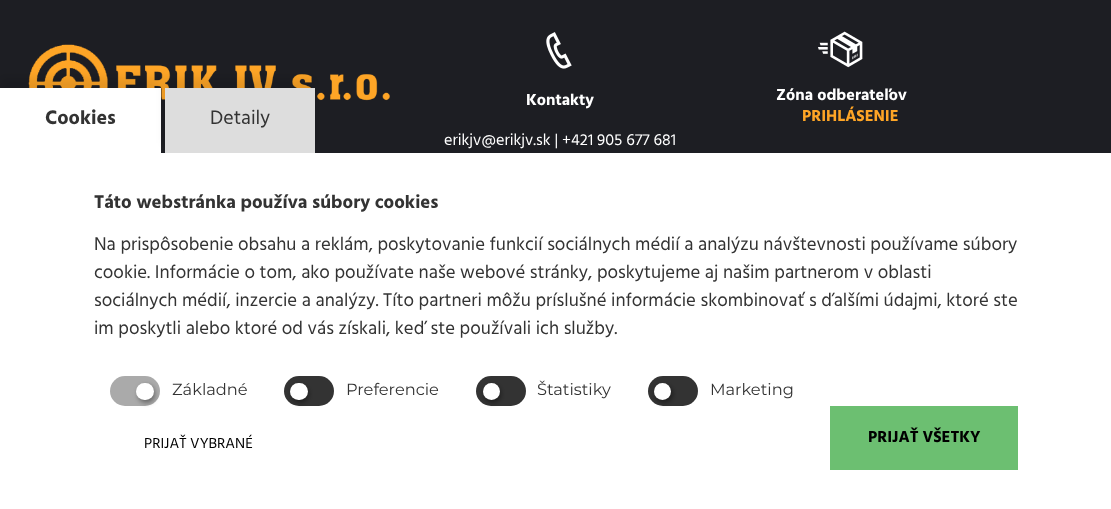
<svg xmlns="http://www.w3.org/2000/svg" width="1111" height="509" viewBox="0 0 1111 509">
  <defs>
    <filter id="blur1" x="-50%" y="-200%" width="200%" height="500%"><feGaussianBlur stdDeviation="5"/></filter>
    <filter id="blur2" x="-50%" y="-200%" width="200%" height="500%"><feGaussianBlur stdDeviation="2.5"/></filter>
  </defs>
  <rect width="100%" height="100%" fill="#1d1e23"/>
  <image x="28" y="44" width="362" height="57" href="img1.png"/>
  <image x="546" y="32" width="26" height="37" href="img2.png"/>
  <text x="526" y="105" font-family="Hind" font-size="16.25" font-weight="bold" fill="#ffffff">Kontakty</text>
  <text x="444" y="145" font-family="Hind" font-size="16.25" fill="#ffffff">erikjv@erikjv.sk | +421 905 677 681</text>
  <image x="818" y="31" width="45" height="37" href="img3.png"/>
  <text x="776" y="100" font-family="Hind" font-size="16.25" font-weight="bold" fill="#ffffff">Zóna odberateľov</text>
  <text x="802" y="121" font-family="Hind" font-size="16.25" font-weight="bold" fill="#fea526">PRIHLÁSENIE</text>
  <rect x="0" y="153" width="1111" height="356" fill="#ffffff"/>
  <rect x="0" y="78" width="161" height="65" fill="#000000" fill-opacity="0.1" filter="url(#blur1)"/>
  <rect x="0" y="88" width="161" height="65" fill="#ffffff"/>
  <text x="45" y="124" font-family="Hind" font-size="20" font-weight="bold" fill="#333333">Cookies</text>
  <rect x="165" y="78" width="150" height="65" fill="#000000" fill-opacity="0.1" filter="url(#blur1)"/>
  <rect x="165" y="88" width="150" height="65" fill="#dddddd"/>
  <text x="210" y="124" font-family="Hind" font-size="20" fill="#333333">Detaily</text>
  <text x="94" y="208" font-family="Hind" font-size="18.75" font-weight="bold" fill="#333333">Táto webstránka používa súbory cookies</text>
  <text x="94" y="250" font-family="Hind" font-size="18.75" fill="#333333">Na prispôsobenie obsahu a reklám, poskytovanie funkcií sociálnych médií a analýzu návštevnosti používame súbory</text>
  <text x="94" y="278" font-family="Hind" font-size="18.75" fill="#333333">cookie. Informácie o tom, ako používate naše webové stránky, poskytujeme aj našim partnerom v oblasti</text>
  <text x="94" y="306" font-family="Hind" font-size="18.75" fill="#333333">sociálnych médií, inzercie a analýzy. Títo partneri môžu príslušné informácie skombinovať s ďalšími údajmi, ktoré ste</text>
  <text x="94" y="334" font-family="Hind" font-size="18.75" fill="#333333">im poskytli alebo ktoré od vás získali, keď ste používali ich služby.</text>
  <rect x="110" y="376" width="50" height="30" rx="15" fill="#aaaaaa"/>
  <rect x="138" y="385" width="17" height="18" rx="8.5" fill="#000000" fill-opacity="0.4" filter="url(#blur2)"/>
  <rect x="136" y="383" width="18" height="17" rx="8.5" fill="#ffffff"/>
  <text x="172" y="395" font-family="Montserrat" font-size="16.25" fill="#333333">Základné</text>
  <rect x="284" y="376" width="50" height="30" rx="15" fill="#333333"/>
  <rect x="291" y="385" width="18" height="18" rx="9" fill="#000000" fill-opacity="0.4" filter="url(#blur2)"/>
  <rect x="290" y="383" width="18" height="17" rx="8.5" fill="#ffffff"/>
  <text x="346" y="395" font-family="Montserrat" font-size="16.25" fill="#333333">Preferencie</text>
  <rect x="476" y="376" width="50" height="30" rx="15" fill="#333333"/>
  <rect x="484" y="385" width="17" height="18" rx="8.5" fill="#000000" fill-opacity="0.4" filter="url(#blur2)"/>
  <circle cx="491.5" cy="391.5" r="8.5" fill="#ffffff"/>
  <text x="537" y="395" font-family="Montserrat" font-size="16.25" fill="#333333">Štatistiky</text>
  <rect x="648" y="376" width="50" height="30" rx="15" fill="#333333"/>
  <rect x="655" y="385" width="18" height="18" rx="9" fill="#000000" fill-opacity="0.4" filter="url(#blur2)"/>
  <circle cx="662.5" cy="391.5" r="8.5" fill="#ffffff"/>
  <text x="710" y="395" font-family="Montserrat" font-size="16.25" fill="#333333">Marketing</text>
  <text x="144" y="448" font-family="Hind" font-size="15" fill="#000000">PRIJAŤ VYBRANÉ</text>
  <rect x="830" y="406" width="188" height="64" fill="#6cbf71"/>
  <text x="868" y="442" font-family="Hind" font-size="16.25" font-weight="bold" fill="#000000">PRIJAŤ VŠETKY</text>
</svg>
